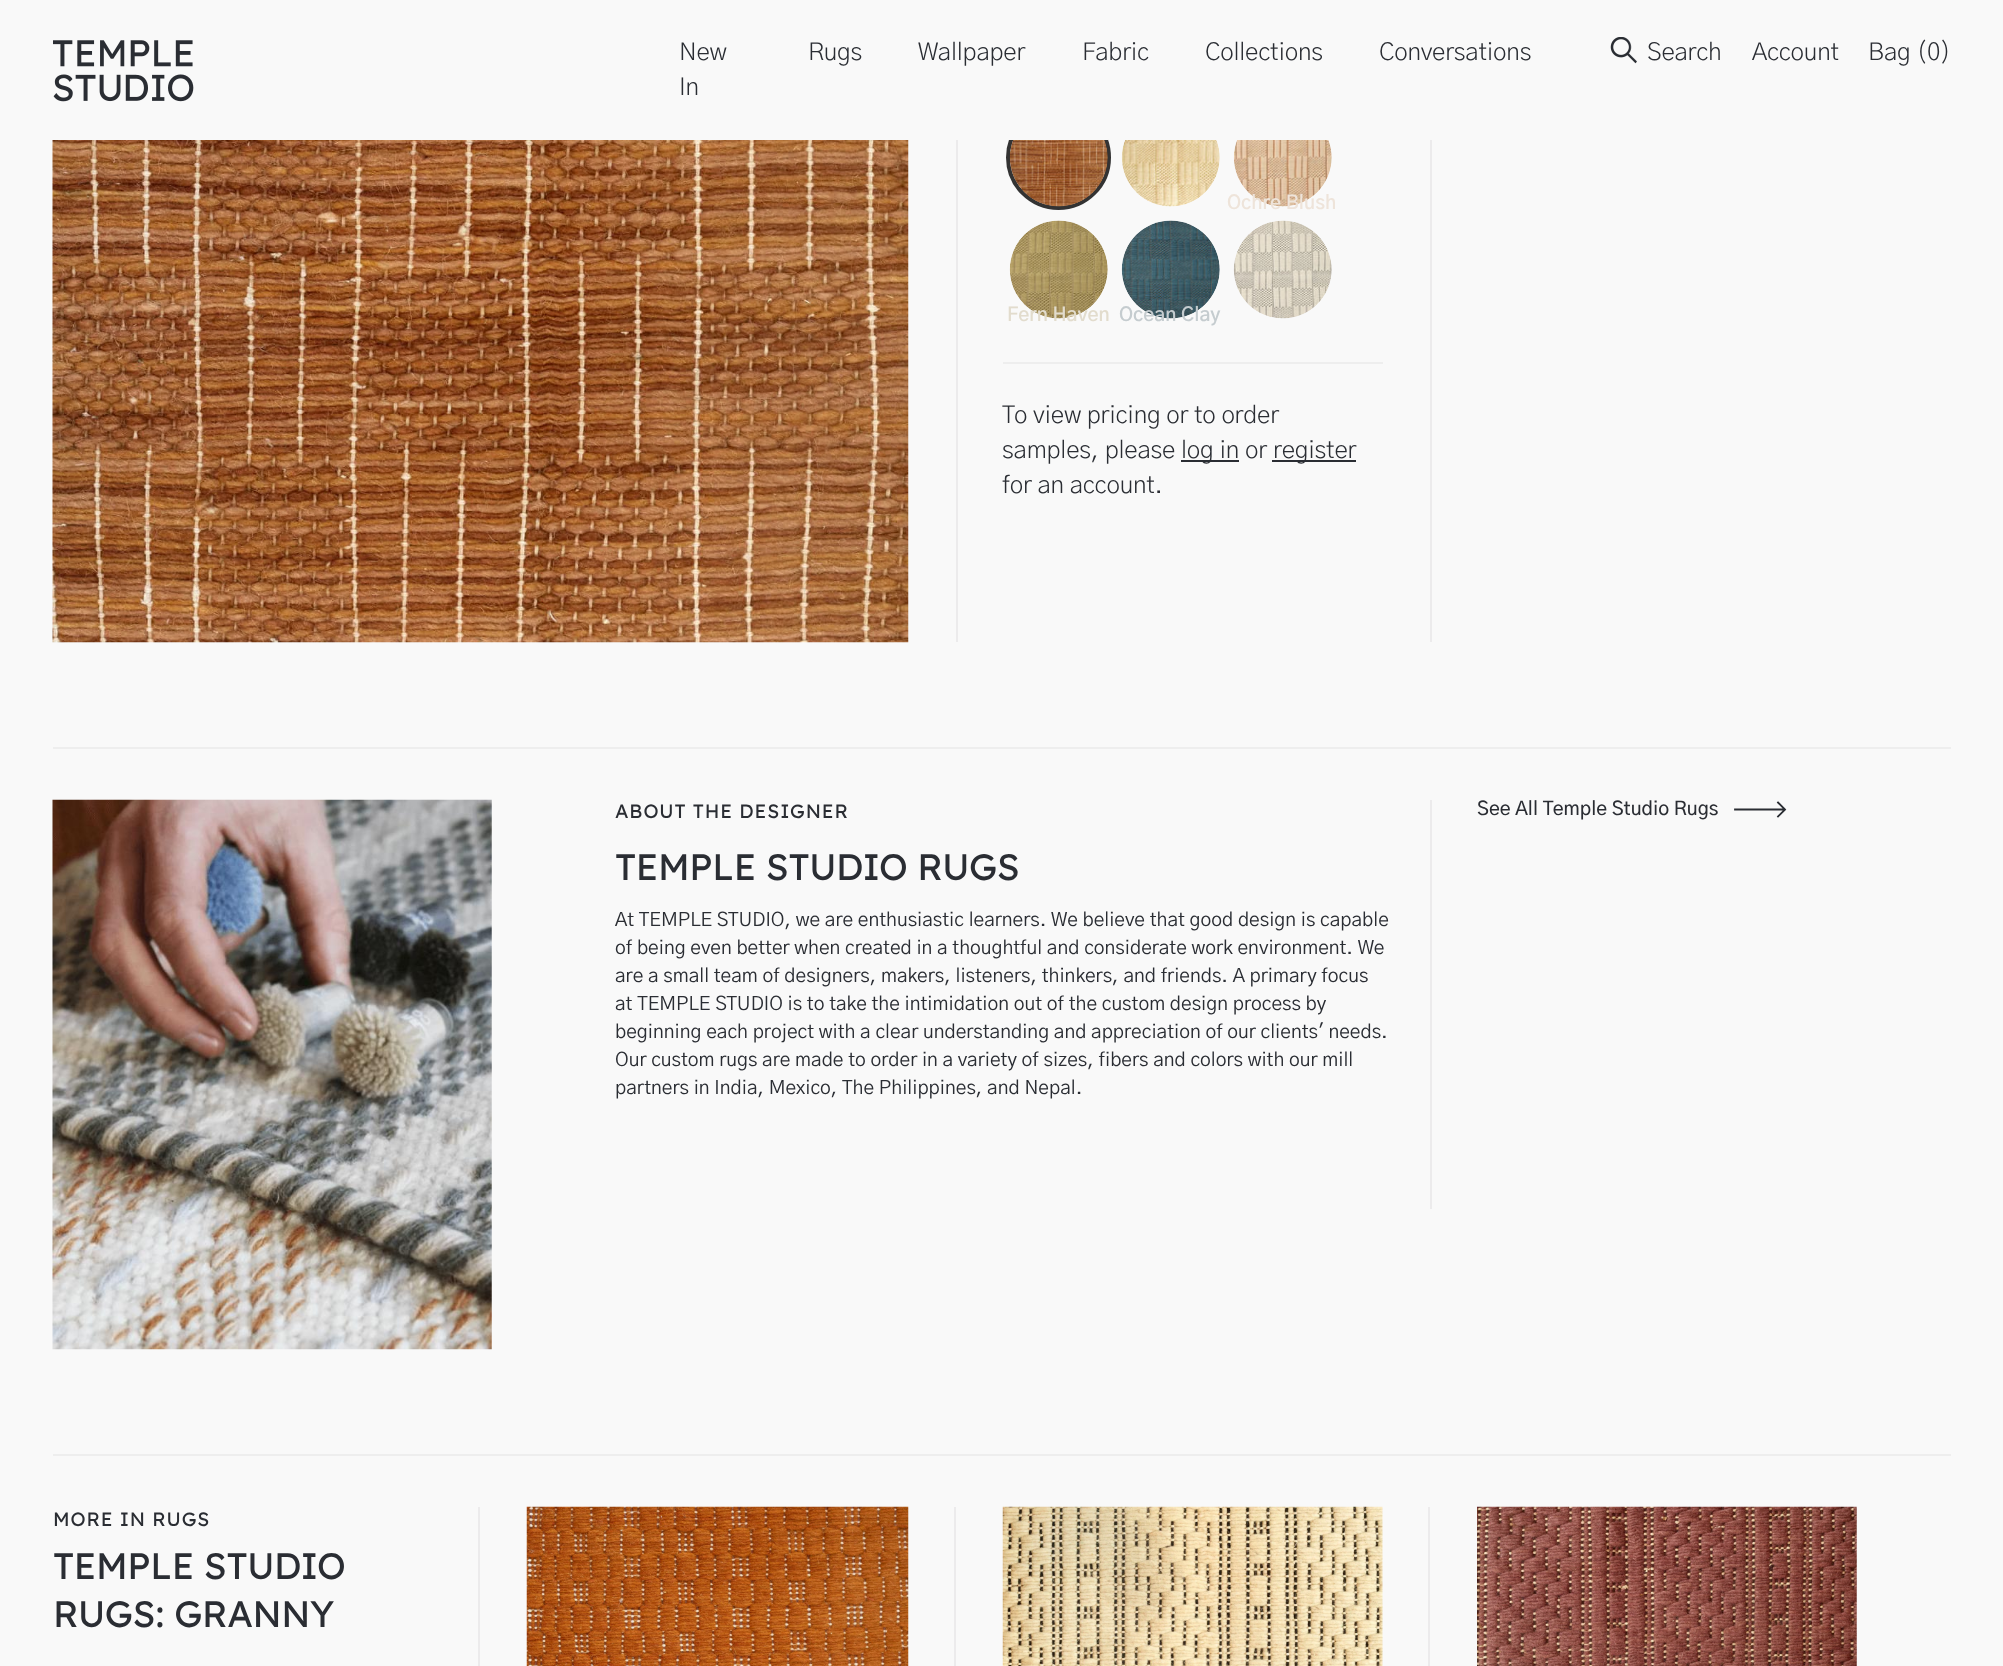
<svg xmlns="http://www.w3.org/2000/svg" width="2003" height="1666" viewBox="0 0 2003 1666">
  <rect width="100%" height="100%" fill="#f9f9f9"/>
  <circle cx="1058.5" cy="157.5" r="50.5" fill="none" stroke="#333333" stroke-width="4"/>
  <rect x="1009" y="105" width="99" height="35" fill="#f9f9f9"/>
  <image x="53" y="40" width="141" height="62" href="img1.png"/>
  <text x="679" y="60" font-family="'Gothic A1'" font-size="24.5" font-weight="300" letter-spacing="-0.2" fill="#2a2d33">New</text>
  <text x="679" y="95" font-family="'Gothic A1'" font-size="24.5" font-weight="300" letter-spacing="-0.2" fill="#2a2d33">In</text>
  <text x="808" y="60" font-family="'Gothic A1'" font-size="24.5" font-weight="300" letter-spacing="-0.2" fill="#2a2d33">Rugs</text>
  <text x="918" y="60" font-family="'Gothic A1'" font-size="24.5" font-weight="300" letter-spacing="-0.2" fill="#2a2d33">Wallpaper</text>
  <text x="1082" y="60" font-family="'Gothic A1'" font-size="24.5" font-weight="300" letter-spacing="-0.2" fill="#2a2d33">Fabric</text>
  <text x="1205" y="60" font-family="'Gothic A1'" font-size="24.5" font-weight="300" letter-spacing="-0.2" fill="#2a2d33">Collections</text>
  <text x="1379" y="60" font-family="'Gothic A1'" font-size="24.5" font-weight="300" letter-spacing="-0.2" fill="#2a2d33">Conversations</text>
  <image x="1610" y="37" width="27" height="27" href="img2.png"/>
  <text x="1647" y="60" font-family="'Gothic A1'" font-size="24.5" font-weight="300" letter-spacing="-0.2" fill="#2a2d33">Search</text>
  <text x="1752" y="60" font-family="'Gothic A1'" font-size="24.5" font-weight="300" letter-spacing="-0.2" fill="#2a2d33">Account</text>
  <text x="1868" y="60" font-family="'Gothic A1'" font-size="24.5" font-weight="300" letter-spacing="-0.2" fill="#2a2d33">Bag (0)</text>
  <image x="52" y="140" width="857" height="503" href="img3.png"/>
  <rect x="956" y="140" width="2" height="502" fill="#ecebec"/>
  <image x="1009" y="140" width="99" height="67" href="img4.png"/>
  <image x="1121" y="140" width="99" height="67" href="img5.png"/>
  <image x="1233" y="140" width="99" height="67" href="img6.png"/>
  <text x="1227" y="209" font-family="'Gothic A1'" font-size="19.25" font-weight="600" fill="#eee4da">Ochre Blush</text>
  <image x="1009" y="220" width="99" height="99" href="img7.png"/>
  <text x="1007" y="321" font-family="'Gothic A1'" font-size="19.25" font-weight="600" fill="#e2dccd">Fern Haven</text>
  <image x="1121" y="220" width="99" height="99" href="img8.png"/>
  <text x="1119" y="321" font-family="'Gothic A1'" font-size="19.25" font-weight="600" fill="#c5cccf">Ocean Clay</text>
  <image x="1233" y="220" width="99" height="99" href="img9.png"/>
  <rect x="1430" y="140" width="2" height="502" fill="#ecebec"/>
  <rect x="1003" y="362" width="380" height="2" fill="#eeeeee"/>
  <text x="1002" y="423" font-family="'Gothic A1'" font-size="24.5" font-weight="300" letter-spacing="-0.2" fill="#2a2d33">To view pricing or to order</text>
  <text x="1002" y="458" font-family="'Gothic A1'" font-size="24.5" font-weight="300" letter-spacing="-0.2" fill="#2a2d33">samples, please</text>
  <rect x="1181" y="460" width="58" height="2" fill="#2a2d33"/>
  <text x="1181" y="458" font-family="'Gothic A1'" font-size="24.5" font-weight="300" letter-spacing="-0.2" fill="#2a2d33">log in or</text>
  <rect x="1272" y="460" width="84" height="2" fill="#2a2d33"/>
  <text x="1273" y="458" font-family="'Gothic A1'" font-size="24.5" font-weight="300" letter-spacing="-0.2" fill="#2a2d33">register</text>
  <text x="1002" y="493" font-family="'Gothic A1'" font-size="24.5" font-weight="300" letter-spacing="-0.2" fill="#2a2d33">for an account.</text>
  <rect x="53" y="747" width="1898" height="2" fill="#eeeeee"/>
  <image x="52" y="799" width="440" height="551" href="img10.png"/>
  <text x="615" y="818" font-family="Lexend Deca" font-size="19.25" letter-spacing="0.9" fill="#2a2d33">ABOUT THE DESIGNER</text>
  <rect x="1430" y="800" width="2" height="409" fill="#ecebec"/>
  <text x="615" y="880" font-family="Lexend Deca" font-size="36.75" letter-spacing="-0.4" fill="#2a2d33">TEMPLE STUDIO RUGS</text>
  <text x="615" y="926" font-family="'Gothic A1'" font-size="19.25" fill="#2a2d33">At TEMPLE STUDIO, we are enthusiastic learners. We believe that good design is capable</text>
  <text x="615" y="954" font-family="'Gothic A1'" font-size="19.25" fill="#2a2d33">of being even better when created in a thoughtful and considerate work environment. We</text>
  <text x="615" y="982" font-family="'Gothic A1'" font-size="19.25" fill="#2a2d33">are a small team of designers, makers, listeners, thinkers, and friends. A primary focus</text>
  <text x="615" y="1010" font-family="'Gothic A1'" font-size="19.25" fill="#2a2d33">at TEMPLE STUDIO is to take the intimidation out of the custom design process by</text>
  <text x="615" y="1038" font-family="'Gothic A1'" font-size="19.25" fill="#2a2d33">beginning each project with a clear understanding and appreciation of our clients' needs.</text>
  <text x="615" y="1066" font-family="'Gothic A1'" font-size="19.25" fill="#2a2d33">Our custom rugs are made to order in a variety of sizes, fibers and colors with our mill</text>
  <text x="615" y="1094" font-family="'Gothic A1'" font-size="19.25" fill="#2a2d33">partners in India, Mexico, The Philippines, and Nepal.</text>
  <text x="1477" y="815" font-family="'Gothic A1'" font-size="19.25" font-weight="500" fill="#2a2d33">See All Temple Studio Rugs</text>
  <path d="M1735 809.5H1783M1785 809.5L1778 802.5M1785 809.5L1778 816.5" fill="none" stroke="#2a2d33" stroke-width="1.8" stroke-linecap="square"/>
  <rect x="53" y="1454" width="1898" height="2" fill="#eeeeee"/>
  <text x="53" y="1526" font-family="Lexend Deca" font-size="19.25" letter-spacing="0.9" fill="#2a2d33">MORE IN RUGS</text>
  <rect x="478" y="1507" width="2" height="159" fill="#ecebec"/>
  <text x="53" y="1579" font-family="Lexend Deca" font-size="36.75" letter-spacing="-0.4" fill="#2a2d33">TEMPLE STUDIO</text>
  <text x="53" y="1627" font-family="Lexend Deca" font-size="36.75" letter-spacing="-0.4" fill="#2a2d33">RUGS: GRANNY</text>
  <image x="526" y="1506" width="383" height="160" href="img11.png"/>
  <rect x="954" y="1507" width="2" height="159" fill="#ecebec"/>
  <image x="1002" y="1506" width="381" height="160" href="img12.png"/>
  <rect x="1428" y="1507" width="2" height="159" fill="#ecebec"/>
  <image x="1477" y="1506" width="380" height="160" href="img13.png"/>
</svg>
